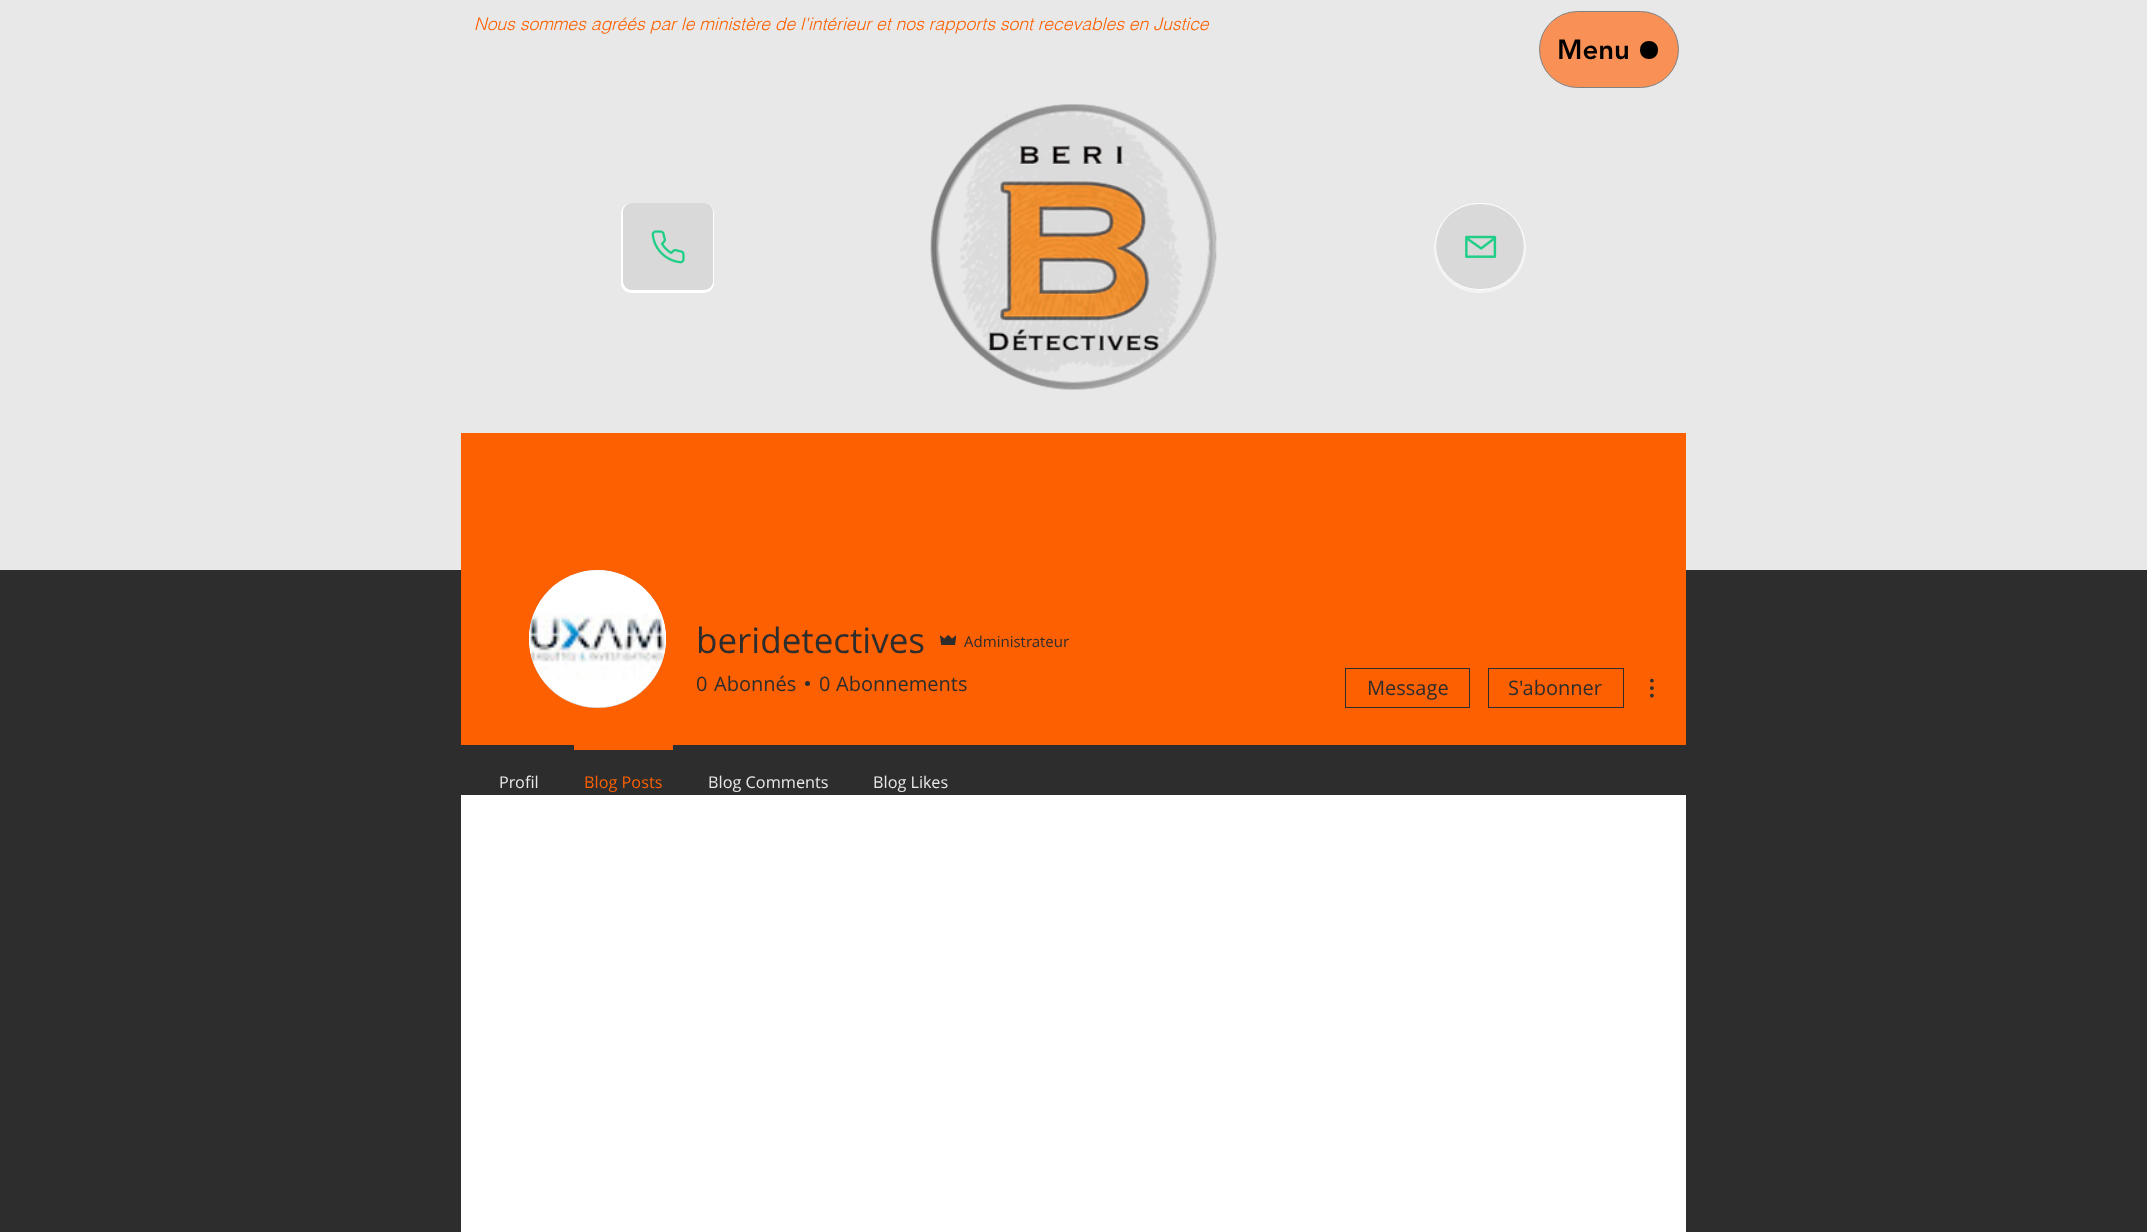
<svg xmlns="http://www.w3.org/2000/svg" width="2147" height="1232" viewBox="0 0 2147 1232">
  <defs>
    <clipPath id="clip1"><path d="M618 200H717V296H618ZM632 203H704C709 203 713 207 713 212V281C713 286 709 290 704 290H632C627 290 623 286 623 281V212C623 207 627 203 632 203Z" clip-rule="evenodd"/></clipPath>
    <filter id="blur1" x="-50%" y="-200%" width="200%" height="500%"><feGaussianBlur stdDeviation="0.5"/></filter>
    <clipPath id="clip2"><path d="M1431 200H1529V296H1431ZM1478.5 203H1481.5C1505.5 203 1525 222.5 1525 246.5C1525 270.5 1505.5 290 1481.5 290H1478.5C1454.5 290 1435 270.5 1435 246.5C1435 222.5 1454.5 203 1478.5 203Z" clip-rule="evenodd"/></clipPath>
  </defs>
  <rect width="100%" height="100%" fill="#2d2d2d"/>
  <rect x="0" y="0" width="2147" height="570" fill="#e8e8e8"/>
  <text x="474" y="30" font-family="helvetica" font-size="17.5" font-weight="300" font-style="italic" fill="#fc6000">Nous sommes agréés par le ministère de l'intérieur et nos rapports sont recevables en Justice</text>
  <rect x="1539.5" y="11.5" width="139" height="76" rx="38" fill="#f99157" stroke="#818181"/>
  <text x="1557" y="59" font-family="'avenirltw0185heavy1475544'" font-size="27.5" font-weight="900" fill="#000000">Menu</text>
  <path d="M1658 50C1658 62 1640 62 1640 50C1640 38 1658 38 1658 50Z" fill="#000000"/>
  <g clip-path="url(#clip1)">
    <rect x="621" y="203" width="93" height="90" rx="10" fill="#fffffe" filter="url(#blur1)"/>
  </g>
  <rect x="623" y="203" width="90" height="87" rx="9" fill="#ababab" fill-opacity="0.25"/>
  <image x="651" y="230" width="34" height="34" href="img1.png"/>
  <image x="930" y="104" width="287" height="286" href="img2.png"/>
  <g clip-path="url(#clip2)">
    <rect x="1434" y="203" width="92" height="90" rx="45" fill="#fffffe" fill-opacity="0.51" filter="url(#blur1)"/>
  </g>
  <rect x="1435.5" y="203.5" width="89" height="86" rx="43" fill="#ababab" fill-opacity="0.25" stroke="#fffffe"/>
  <image x="1465" y="235" width="32" height="23" href="img3.png"/>
  <rect x="461" y="433" width="1225" height="312" fill="#fc6000"/>
  <rect x="529" y="570" width="137" height="138" rx="68.5" fill="#d8d8d8"/>
  <image x="529" y="570" width="137" height="138" href="img4.png"/>
  <text x="696" y="653" font-family="Open Sans" font-size="35" fill="#2d2d2d">beridetectives</text>
  <image x="940" y="635" width="16" height="10" href="img5.png"/>
  <text x="964" y="647" font-family="Open Sans" font-size="15" fill="#2d2d2d">Administrateur</text>
  <text x="696" y="691" font-family="Open Sans" font-size="20" fill="#2d2d2d">0</text>
  <text x="714" y="691" font-family="Open Sans" font-size="20" fill="#2d2d2d">Abonnés</text>
  <circle cx="807.5" cy="683.5" r="2.5" fill="#2d2d2d"/>
  <text x="819" y="691" font-family="Open Sans" font-size="20" fill="#2d2d2d">0</text>
  <text x="836" y="691" font-family="Open Sans" font-size="20" fill="#2d2d2d">Abonnements</text>
  <rect x="1345.5" y="668.5" width="124" height="39" fill="none" stroke="#2d2d2d"/>
  <text x="1367" y="695" font-family="Open Sans" font-size="20" fill="#2d2d2d">Message</text>
  <rect x="1488.5" y="668.5" width="135" height="39" fill="none" stroke="#2d2d2d"/>
  <text x="1508" y="695" font-family="Open Sans" font-size="20" fill="#2d2d2d">S'abonner</text>
  <image x="1650" y="678" width="4" height="20" href="img6.png"/>
  <text x="499" y="788" font-family="Open Sans" font-size="16.25" fill="#e8e8e8">Profil</text>
  <rect x="574" y="745" width="99" height="5" fill="#fc6000"/>
  <text x="584" y="788" font-family="Open Sans" font-size="16.25" fill="#fc6000">Blog Posts</text>
  <text x="708" y="788" font-family="Open Sans" font-size="16.25" fill="#e8e8e8">Blog Comments</text>
  <text x="873" y="788" font-family="Open Sans" font-size="16.25" fill="#e8e8e8">Blog Likes</text>
  <rect x="461" y="795" width="1225" height="437" fill="#ffffff"/>
</svg>
